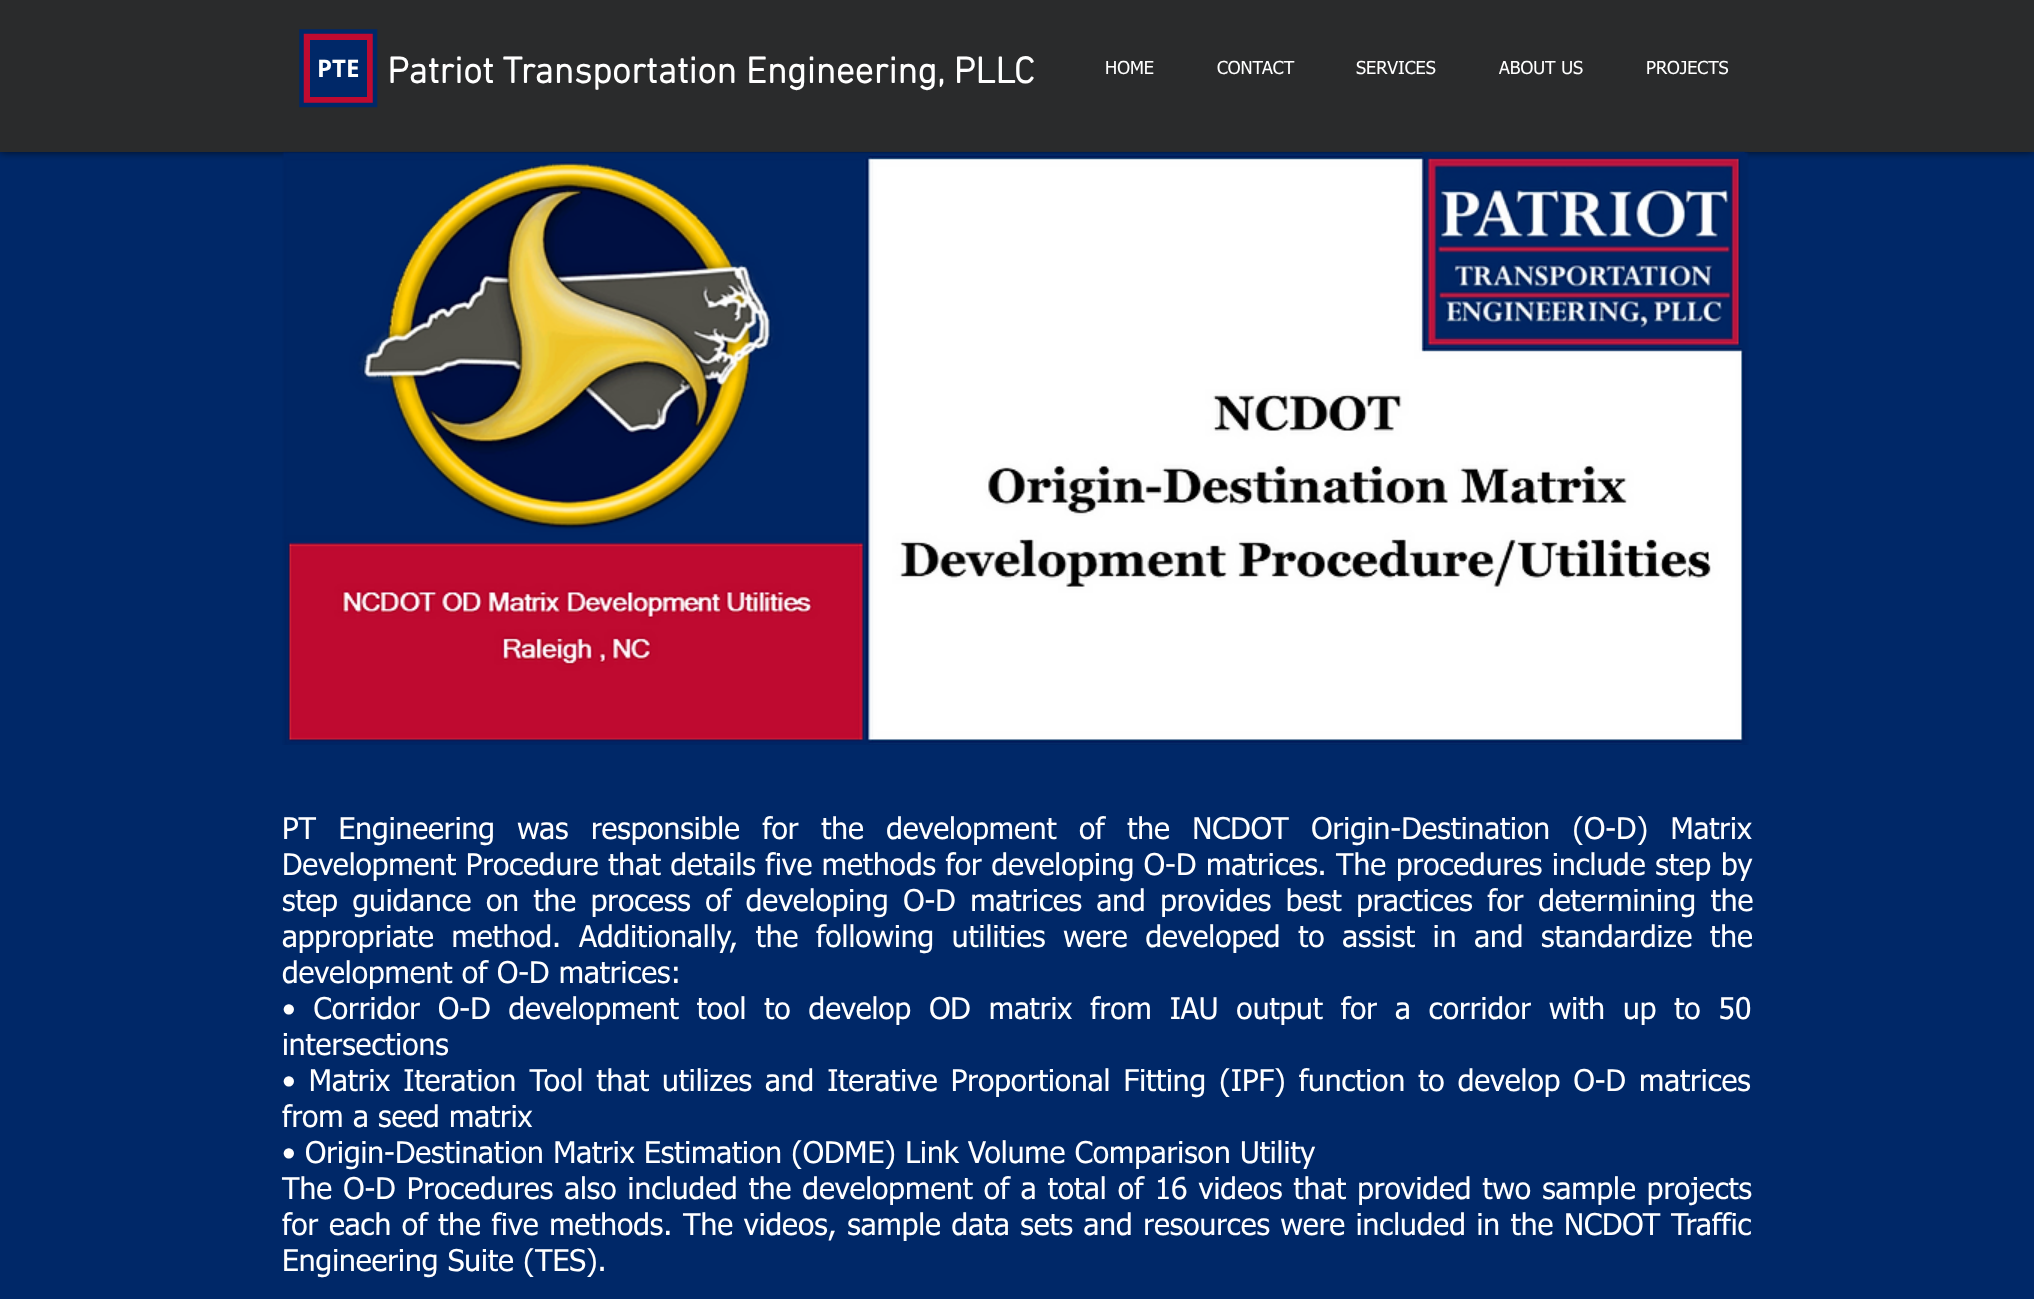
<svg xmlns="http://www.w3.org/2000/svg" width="2034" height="1299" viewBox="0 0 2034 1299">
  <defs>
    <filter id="blur1" x="-50%" y="-200%" width="200%" height="500%"><feGaussianBlur stdDeviation="4"/></filter>
  </defs>
  <rect width="100%" height="100%" fill="#002868"/>
  <rect x="0" y="0" width="2034" height="152" fill="#000000" fill-opacity="0.7" filter="url(#blur1)"/>
  <rect x="0" y="0" width="2034" height="152" fill="#2a2b2c"/>
  <rect x="303" y="33" width="70" height="70" fill="#bf0a30"/>
  <path d="M375 31.5V105H301.5V31.5Z" fill="none" stroke="#002868" stroke-width="4.5"/>
  <rect x="310" y="40" width="57" height="57" fill="#002868"/>
  <text x="317" y="77" font-family="Open Sans" font-size="24" font-weight="bold" fill="#ffffff">PTE</text>
  <text x="387" y="83" font-family="'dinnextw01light'" font-size="37.5" font-weight="bold" fill="#ffffff">Patriot Transportation Engineering, PLLC</text>
  <text x="1105" y="74" font-family="tahoma" font-size="18" fill="#ffffff">HOME</text>
  <text x="1217" y="74" font-family="tahoma" font-size="18" fill="#ffffff">CONTACT</text>
  <text x="1356" y="74" font-family="tahoma" font-size="18" fill="#ffffff">SERVICES</text>
  <text x="1499" y="74" font-family="tahoma" font-size="18" fill="#ffffff">ABOUT US</text>
  <text x="1646" y="74" font-family="tahoma" font-size="18" fill="#ffffff">PROJECTS</text>
  <image x="282" y="151" width="1467" height="594" href="img1.png"/>
  <text x="282" y="839" word-spacing="13.1" font-family="tahoma" font-size="30" fill="#ffffff">PT Engineering was responsible for the development of the NCDOT Origin-Destination (O-D) Matrix</text>
  <text x="282" y="875" word-spacing="0.25" font-family="tahoma" font-size="30" fill="#ffffff">Development Procedure that details five methods for developing O-D matrices.</text>
  <text x="1336" y="875" word-spacing="0.5" font-family="tahoma" font-size="30" fill="#ffffff">The procedures include step by</text>
  <text x="282" y="911" word-spacing="5.25" font-family="tahoma" font-size="30" fill="#ffffff">step guidance on the process of developing O-D matrices and provides best practices for determining the</text>
  <text x="282" y="947" word-spacing="8.4" font-family="tahoma" font-size="30" fill="#ffffff">appropriate method.</text>
  <text x="579" y="947" word-spacing="8.4" font-family="tahoma" font-size="30" fill="#ffffff">Additionally, the following utilities were developed to assist in and standardize the</text>
  <text x="282" y="983" font-family="tahoma" font-size="30" fill="#ffffff">development of O-D matrices:</text>
  <text x="282" y="1019" word-spacing="8.6" font-family="tahoma" font-size="30" fill="#ffffff">• Corridor O-D development tool to develop OD matrix from IAU output for a corridor with up to 50</text>
  <text x="282" y="1055" font-family="tahoma" font-size="30" fill="#ffffff">intersections</text>
  <text x="282" y="1091" word-spacing="3.75" font-family="tahoma" font-size="30" fill="#ffffff">• Matrix Iteration Tool that utilizes and Iterative Proportional Fitting (IPF) function to develop O-D matrices</text>
  <text x="282" y="1127" font-family="tahoma" font-size="30" fill="#ffffff">from a seed matrix</text>
  <text x="282" y="1163" font-family="tahoma" font-size="30" fill="#ffffff">• Origin-Destination Matrix Estimation (ODME) Link Volume Comparison Utility</text>
  <text x="282" y="1199" word-spacing="1.75" font-family="tahoma" font-size="30" fill="#ffffff">The O-D Procedures also included the development of a total of 16 videos that provided two sample projects</text>
  <text x="282" y="1235" word-spacing="1.3" font-family="tahoma" font-size="30" fill="#ffffff">for each of the five methods.</text>
  <text x="683" y="1235" word-spacing="1.3" font-family="tahoma" font-size="30" fill="#ffffff">The videos, sample data sets and resources were included in the NCDOT Traffic</text>
  <text x="282" y="1271" font-family="tahoma" font-size="30" fill="#ffffff">Engineering Suite (TES).</text>
</svg>
